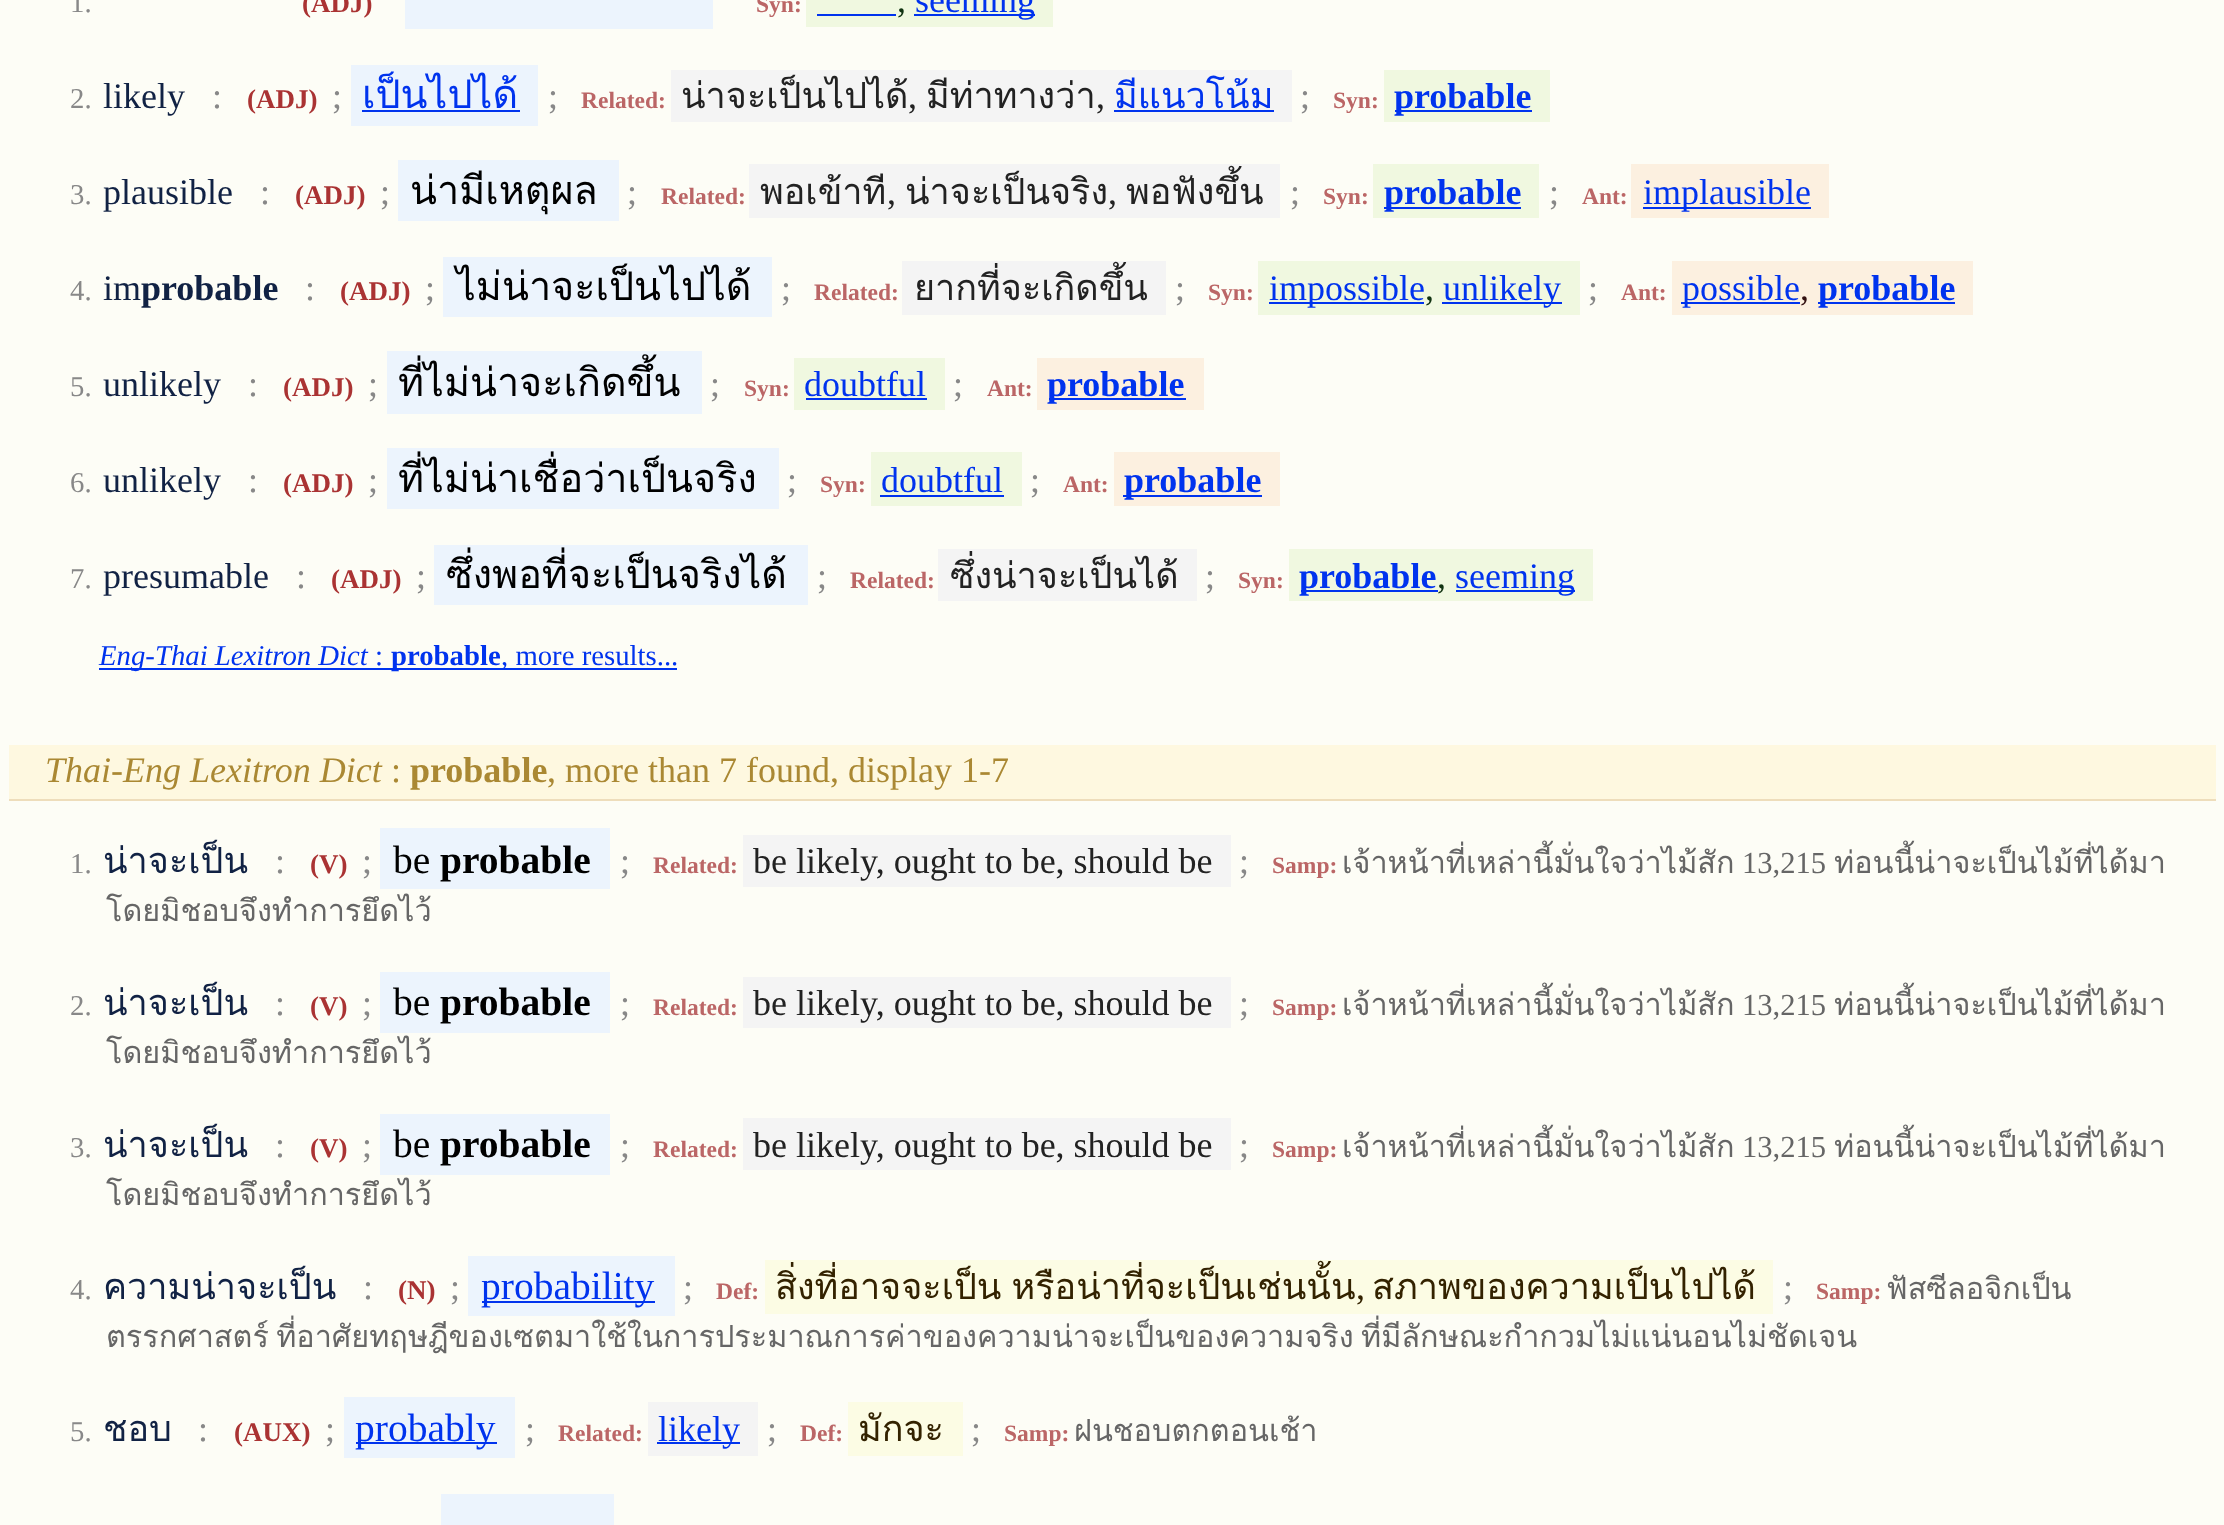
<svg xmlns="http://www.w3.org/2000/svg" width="2224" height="1525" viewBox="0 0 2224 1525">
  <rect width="100%" height="100%" fill="#fdfdf6"/>
  <text x="70" y="12" font-family="Liberation Serif" font-size="28.75" fill="#888888">1.</text>
  <text x="302" y="12" font-family="Liberation Serif" font-size="27" font-weight="bold" fill="#aa3333">(ADJ)</text>
  <rect x="405" y="0" width="308" height="29" fill="#ecf4fd"/>
  <text x="756" y="12" font-family="Liberation Serif" font-size="23.5" font-weight="bold" fill="#bb6666">Syn:</text>
  <rect x="806" y="0" width="247" height="27" fill="#f0f8e0"/>
  <text x="897" y="12" font-family="Liberation Serif" font-size="36" fill="#113311">,</text>
  <rect x="817" y="14" width="79" height="2" fill="#0033ee"/>
  <rect x="914" y="14" width="121" height="2" fill="#0033ee"/>
  <text x="915" y="12" font-family="Liberation Serif" font-size="36" fill="#0033ee">seeming</text>
  <text x="70" y="108" font-family="Liberation Serif" font-size="28.75" fill="#888888">2.</text>
  <text x="103" y="108" font-family="Liberation Serif" font-size="36" fill="#112244">likely</text>
  <text x="212" y="108" font-family="Liberation Serif" font-size="36" fill="#888888">:</text>
  <text x="247" y="108" font-family="Liberation Serif" font-size="27" font-weight="bold" fill="#aa3333">(ADJ)</text>
  <text x="332" y="108" font-family="Liberation Serif" font-size="36" fill="#888888">;</text>
  <rect x="351" y="65" width="187" height="61" fill="#ecf4fd"/>
  <text x="362" y="108" font-family="Loma" font-size="39.5" fill="#0033ee">เป็นไปได้</text>
  <rect x="362" y="110" width="158" height="2" fill="#0033ee"/>
  <text x="548" y="108" font-family="Liberation Serif" font-size="36" fill="#888888">;</text>
  <text x="581" y="108" font-family="Liberation Serif" font-size="23.5" font-weight="bold" fill="#bb6666">Related:</text>
  <rect x="671" y="70" width="621" height="52" fill="#f4f4f4"/>
  <text x="681" y="108" font-family="Loma" font-size="36" fill="#222222">น่าจะเป็นไปได้</text>
  <text x="908" y="108" font-family="Liberation Serif" font-size="36" fill="#222222">,</text>
  <text x="926" y="108" font-family="Loma" font-size="36" fill="#222222">มีท่าทางว่า</text>
  <text x="1096" y="108" font-family="Liberation Serif" font-size="36" fill="#222222">,</text>
  <text x="1114" y="108" font-family="Loma" font-size="36" fill="#0033ee">มีแนวโน้ม</text>
  <text x="1300" y="108" font-family="Liberation Serif" font-size="36" fill="#888888">;</text>
  <text x="1333" y="108" font-family="Liberation Serif" font-size="23.5" font-weight="bold" fill="#bb6666">Syn:</text>
  <rect x="1384" y="70" width="166" height="52" fill="#f0f8e0"/>
  <rect x="1395" y="110" width="137" height="2" fill="#0033ee"/>
  <text x="1394" y="108" font-family="Liberation Serif" font-size="36" font-weight="bold" fill="#0033ee">probable</text>
  <rect x="1114" y="110" width="160" height="2" fill="#0033ee"/>
  <text x="70" y="204" font-family="Liberation Serif" font-size="28.75" fill="#888888">3.</text>
  <text x="103" y="204" font-family="Liberation Serif" font-size="36" fill="#112244">plausible</text>
  <text x="260" y="204" font-family="Liberation Serif" font-size="36" fill="#888888">:</text>
  <text x="295" y="204" font-family="Liberation Serif" font-size="27" font-weight="bold" fill="#aa3333">(ADJ)</text>
  <text x="380" y="204" font-family="Liberation Serif" font-size="36" fill="#888888">;</text>
  <rect x="398" y="160" width="221" height="61" fill="#ecf4fd"/>
  <text x="410" y="204" font-family="Loma" font-size="39.5" fill="#000000">น่ามีเหตุผล</text>
  <text x="627" y="204" font-family="Liberation Serif" font-size="36" fill="#888888">;</text>
  <text x="661" y="204" font-family="Liberation Serif" font-size="23.5" font-weight="bold" fill="#bb6666">Related:</text>
  <rect x="749" y="164" width="531" height="54" fill="#f4f4f4"/>
  <text x="760" y="204" font-family="Loma" font-size="36" fill="#222222">พอเข้าที</text>
  <text x="887" y="204" font-family="Liberation Serif" font-size="36" fill="#222222">,</text>
  <text x="905" y="204" font-family="Loma" font-size="36" fill="#222222">น่าจะเป็นจริง</text>
  <text x="1108" y="204" font-family="Liberation Serif" font-size="36" fill="#222222">,</text>
  <text x="1126" y="204" font-family="Loma" font-size="36" fill="#222222">พอฟังขึ้น</text>
  <text x="1290" y="204" font-family="Liberation Serif" font-size="36" fill="#888888">;</text>
  <text x="1323" y="204" font-family="Liberation Serif" font-size="23.5" font-weight="bold" fill="#bb6666">Syn:</text>
  <rect x="1373" y="164" width="166" height="54" fill="#f0f8e0"/>
  <rect x="1384" y="207" width="137" height="2" fill="#0033ee"/>
  <text x="1384" y="204" font-family="Liberation Serif" font-size="36" font-weight="bold" fill="#0033ee">probable</text>
  <text x="1549" y="204" font-family="Liberation Serif" font-size="36" fill="#888888">;</text>
  <text x="1582" y="204" font-family="Liberation Serif" font-size="23.5" font-weight="bold" fill="#bb6666">Ant:</text>
  <rect x="1631" y="164" width="198" height="54" fill="#fcf0e0"/>
  <rect x="1643" y="207" width="168" height="2" fill="#0033ee"/>
  <text x="1643" y="204" font-family="Liberation Serif" font-size="36" fill="#0033ee">implausible</text>
  <text x="70" y="300" font-family="Liberation Serif" font-size="28.75" fill="#888888">4.</text>
  <text x="103" y="300" font-family="Liberation Serif" font-size="36" fill="#112244">im</text>
  <text x="141" y="300" font-family="Liberation Serif" font-size="36" font-weight="bold" fill="#112244">probable</text>
  <text x="305" y="300" font-family="Liberation Serif" font-size="36" fill="#888888">:</text>
  <text x="340" y="300" font-family="Liberation Serif" font-size="27" font-weight="bold" fill="#aa3333">(ADJ)</text>
  <text x="425" y="300" font-family="Liberation Serif" font-size="36" fill="#888888">;</text>
  <rect x="443" y="257" width="329" height="60" fill="#ecf4fd"/>
  <text x="456" y="300" font-family="Loma" font-size="39.5" fill="#000000">ไม่น่าจะเป็นไปได้</text>
  <text x="781" y="300" font-family="Liberation Serif" font-size="36" fill="#888888">;</text>
  <text x="814" y="300" font-family="Liberation Serif" font-size="23.5" font-weight="bold" fill="#bb6666">Related:</text>
  <rect x="902" y="261" width="264" height="54" fill="#f4f4f4"/>
  <text x="914" y="300" font-family="Loma" font-size="36" fill="#222222">ยากที่จะเกิดขึ้น</text>
  <text x="1175" y="300" font-family="Liberation Serif" font-size="36" fill="#888888">;</text>
  <text x="1208" y="300" font-family="Liberation Serif" font-size="23.5" font-weight="bold" fill="#bb6666">Syn:</text>
  <rect x="1258" y="261" width="322" height="54" fill="#f0f8e0"/>
  <rect x="1269" y="302" width="155" height="2" fill="#0033ee"/>
  <text x="1269" y="300" font-family="Liberation Serif" font-size="36" fill="#0033ee">impossible</text>
  <text x="1425" y="300" font-family="Liberation Serif" font-size="36" fill="#113311">,</text>
  <rect x="1442" y="302" width="120" height="2" fill="#0033ee"/>
  <text x="1443" y="300" font-family="Liberation Serif" font-size="36" fill="#0033ee">unlikely</text>
  <text x="1588" y="300" font-family="Liberation Serif" font-size="36" fill="#888888">;</text>
  <text x="1621" y="300" font-family="Liberation Serif" font-size="23.5" font-weight="bold" fill="#bb6666">Ant:</text>
  <rect x="1672" y="261" width="301" height="54" fill="#fcf0e0"/>
  <rect x="1681" y="302" width="119" height="2" fill="#0033ee"/>
  <text x="1682" y="300" font-family="Liberation Serif" font-size="36" fill="#0033ee">possible</text>
  <text x="1800" y="300" font-family="Liberation Serif" font-size="36" fill="#331111">,</text>
  <rect x="1818" y="302" width="137" height="2" fill="#0033ee"/>
  <text x="1818" y="300" font-family="Liberation Serif" font-size="36" font-weight="bold" fill="#0033ee">probable</text>
  <text x="70" y="396" font-family="Liberation Serif" font-size="28.75" fill="#888888">5.</text>
  <text x="103" y="396" font-family="Liberation Serif" font-size="36" fill="#112244">unlikely</text>
  <text x="248" y="396" font-family="Liberation Serif" font-size="36" fill="#888888">:</text>
  <text x="283" y="396" font-family="Liberation Serif" font-size="27" font-weight="bold" fill="#aa3333">(ADJ)</text>
  <text x="368" y="396" font-family="Liberation Serif" font-size="36" fill="#888888">;</text>
  <rect x="387" y="351" width="315" height="63" fill="#ecf4fd"/>
  <text x="398" y="396" font-family="Loma" font-size="39.5" fill="#000000">ที่ไม่น่าจะเกิดขึ้น</text>
  <text x="710" y="396" font-family="Liberation Serif" font-size="36" fill="#888888">;</text>
  <text x="744" y="396" font-family="Liberation Serif" font-size="23.5" font-weight="bold" fill="#bb6666">Syn:</text>
  <rect x="794" y="358" width="151" height="52" fill="#f0f8e0"/>
  <text x="804" y="396" font-family="Liberation Serif" font-size="36" fill="#0033ee">doubtful</text>
  <rect x="806" y="398" width="121" height="2" fill="#0033ee"/>
  <text x="953" y="396" font-family="Liberation Serif" font-size="36" fill="#888888">;</text>
  <text x="987" y="396" font-family="Liberation Serif" font-size="23.5" font-weight="bold" fill="#bb6666">Ant:</text>
  <rect x="1037" y="358" width="167" height="52" fill="#fcf0e0"/>
  <rect x="1049" y="398" width="137" height="2" fill="#0033ee"/>
  <text x="1047" y="396" font-family="Liberation Serif" font-size="36" font-weight="bold" fill="#0033ee">probable</text>
  <text x="70" y="492" font-family="Liberation Serif" font-size="28.75" fill="#888888">6.</text>
  <text x="103" y="492" font-family="Liberation Serif" font-size="36" fill="#112244">unlikely</text>
  <text x="248" y="492" font-family="Liberation Serif" font-size="36" fill="#888888">:</text>
  <text x="283" y="492" font-family="Liberation Serif" font-size="27" font-weight="bold" fill="#aa3333">(ADJ)</text>
  <text x="368" y="492" font-family="Liberation Serif" font-size="36" fill="#888888">;</text>
  <rect x="387" y="448" width="392" height="61" fill="#ecf4fd"/>
  <text x="398" y="492" font-family="Loma" font-size="39.5" fill="#000000">ที่ไม่น่าเชื่อว่าเป็นจริง</text>
  <text x="787" y="492" font-family="Liberation Serif" font-size="36" fill="#888888">;</text>
  <text x="820" y="492" font-family="Liberation Serif" font-size="23.5" font-weight="bold" fill="#bb6666">Syn:</text>
  <rect x="871" y="452" width="151" height="54" fill="#f0f8e0"/>
  <text x="881" y="492" font-family="Liberation Serif" font-size="36" fill="#0033ee">doubtful</text>
  <rect x="880" y="495" width="124" height="2" fill="#0033ee"/>
  <text x="1030" y="492" font-family="Liberation Serif" font-size="36" fill="#888888">;</text>
  <text x="1063" y="492" font-family="Liberation Serif" font-size="23.5" font-weight="bold" fill="#bb6666">Ant:</text>
  <rect x="1114" y="452" width="166" height="54" fill="#fcf0e0"/>
  <rect x="1123" y="495" width="139" height="2" fill="#0033ee"/>
  <text x="1124" y="492" font-family="Liberation Serif" font-size="36" font-weight="bold" fill="#0033ee">probable</text>
  <text x="70" y="588" font-family="Liberation Serif" font-size="28.75" fill="#888888">7.</text>
  <text x="103" y="588" font-family="Liberation Serif" font-size="36" fill="#112244">presumable</text>
  <text x="296" y="588" font-family="Liberation Serif" font-size="36" fill="#888888">:</text>
  <text x="331" y="588" font-family="Liberation Serif" font-size="27" font-weight="bold" fill="#aa3333">(ADJ)</text>
  <text x="416" y="588" font-family="Liberation Serif" font-size="36" fill="#888888">;</text>
  <rect x="434" y="545" width="374" height="60" fill="#ecf4fd"/>
  <text x="446" y="588" font-family="Loma" font-size="39.5" fill="#000000">ซึ่งพอที่จะเป็นจริงได้</text>
  <text x="817" y="588" font-family="Liberation Serif" font-size="36" fill="#888888">;</text>
  <text x="850" y="588" font-family="Liberation Serif" font-size="23.5" font-weight="bold" fill="#bb6666">Related:</text>
  <rect x="938" y="549" width="259" height="52" fill="#f4f4f4"/>
  <text x="950" y="588" font-family="Loma" font-size="36" fill="#222222">ซึ่งน่าจะเป็นได้</text>
  <text x="1205" y="588" font-family="Liberation Serif" font-size="36" fill="#888888">;</text>
  <text x="1238" y="588" font-family="Liberation Serif" font-size="23.5" font-weight="bold" fill="#bb6666">Syn:</text>
  <rect x="1289" y="549" width="304" height="52" fill="#f0f8e0"/>
  <rect x="1301" y="590" width="137" height="2" fill="#0033ee"/>
  <text x="1299" y="588" font-family="Liberation Serif" font-size="36" font-weight="bold" fill="#0033ee">probable</text>
  <text x="1437" y="588" font-family="Liberation Serif" font-size="36" fill="#113311">,</text>
  <rect x="1456" y="590" width="119" height="2" fill="#0033ee"/>
  <text x="1455" y="588" font-family="Liberation Serif" font-size="36" fill="#0033ee">seeming</text>
  <rect x="99" y="668" width="578" height="2" fill="#0033ee"/>
  <text x="99" y="665" font-family="Liberation Serif" font-size="28.75" font-style="italic" fill="#0033ee">Eng-Thai Lexitron Dict</text>
  <text x="375" y="665" font-family="Liberation Serif" font-size="28.75" fill="#0033ee">:</text>
  <text x="391" y="665" font-family="Liberation Serif" font-size="28.75" font-weight="bold" fill="#0033ee">probable</text>
  <text x="501" y="665" font-family="Liberation Serif" font-size="28.75" fill="#0033ee">, more results...</text>
  <rect x="9" y="745" width="2207" height="54" fill="#fef8e0"/>
  <rect x="9" y="799" width="2207" height="2" fill="#eeddbb"/>
  <text x="45" y="782" font-family="Liberation Serif" font-size="36" font-style="italic" fill="#aa8833">Thai-Eng Lexitron Dict</text>
  <text x="391" y="782" font-family="Liberation Serif" font-size="36" fill="#aa8833">:</text>
  <text x="410" y="782" font-family="Liberation Serif" font-size="36" font-weight="bold" fill="#aa8833">probable</text>
  <text x="547" y="782" font-family="Liberation Serif" font-size="36" fill="#aa8833">, more than 7 found, display 1-7</text>
  <text x="70" y="873" font-family="Liberation Serif" font-size="28.75" fill="#888888">1.</text>
  <text x="103" y="873" font-family="Loma" font-size="36" fill="#112244">น่าจะเป็น</text>
  <text x="275" y="873" font-family="Liberation Serif" font-size="36" fill="#888888">:</text>
  <text x="310" y="873" font-family="Liberation Serif" font-size="27" font-weight="bold" fill="#aa3333">(V)</text>
  <text x="362" y="873" font-family="Liberation Serif" font-size="36" fill="#888888">;</text>
  <rect x="380" y="828" width="230" height="61" fill="#ecf4fd"/>
  <text x="393" y="873" font-family="Liberation Serif" font-size="39.5" fill="#000000">be</text>
  <text x="440" y="873" font-family="Liberation Serif" font-size="39.5" font-weight="bold" fill="#000000">probable</text>
  <text x="620" y="873" font-family="Liberation Serif" font-size="36" fill="#888888">;</text>
  <text x="653" y="873" font-family="Liberation Serif" font-size="23.5" font-weight="bold" fill="#bb6666">Related:</text>
  <rect x="743" y="835" width="488" height="52" fill="#f4f4f4"/>
  <text x="753" y="873" font-family="Liberation Serif" font-size="36" fill="#222222">be likely, ought to be, should be</text>
  <text x="1239" y="873" font-family="Liberation Serif" font-size="36" fill="#888888">;</text>
  <text x="1272" y="873" font-family="Liberation Serif" font-size="23.5" font-weight="bold" fill="#bb6666">Samp:</text>
  <text x="1342" y="873" font-family="Loma" font-size="30.6" fill="#666666">เจ้าหน้าที่เหล่านี้มั่นใจว่าไม้สัก</text>
  <text x="1742" y="873" font-family="Liberation Serif" font-size="30.6" fill="#666666">13,215</text>
  <text x="1834" y="873" font-family="Loma" font-size="30.6" fill="#666666">ท่อนนี้น่าจะเป็นไม้ที่ได้มา</text>
  <text x="106" y="921" font-family="Loma" font-size="30.6" fill="#666666">โดยมิชอบจึงทำการยึดไว้</text>
  <text x="70" y="1015" font-family="Liberation Serif" font-size="28.75" fill="#888888">2.</text>
  <text x="103" y="1015" font-family="Loma" font-size="36" fill="#112244">น่าจะเป็น</text>
  <text x="275" y="1015" font-family="Liberation Serif" font-size="36" fill="#888888">:</text>
  <text x="310" y="1015" font-family="Liberation Serif" font-size="27" font-weight="bold" fill="#aa3333">(V)</text>
  <text x="362" y="1015" font-family="Liberation Serif" font-size="36" fill="#888888">;</text>
  <rect x="380" y="972" width="230" height="61" fill="#ecf4fd"/>
  <text x="393" y="1015" font-family="Liberation Serif" font-size="39.5" fill="#000000">be</text>
  <text x="440" y="1015" font-family="Liberation Serif" font-size="39.5" font-weight="bold" fill="#000000">probable</text>
  <text x="620" y="1015" font-family="Liberation Serif" font-size="36" fill="#888888">;</text>
  <text x="653" y="1015" font-family="Liberation Serif" font-size="23.5" font-weight="bold" fill="#bb6666">Related:</text>
  <rect x="743" y="977" width="488" height="51" fill="#f4f4f4"/>
  <text x="753" y="1015" font-family="Liberation Serif" font-size="36" fill="#222222">be likely, ought to be, should be</text>
  <text x="1239" y="1015" font-family="Liberation Serif" font-size="36" fill="#888888">;</text>
  <text x="1272" y="1015" font-family="Liberation Serif" font-size="23.5" font-weight="bold" fill="#bb6666">Samp:</text>
  <text x="1342" y="1015" font-family="Loma" font-size="30.6" fill="#666666">เจ้าหน้าที่เหล่านี้มั่นใจว่าไม้สัก</text>
  <text x="1742" y="1015" font-family="Liberation Serif" font-size="30.6" fill="#666666">13,215</text>
  <text x="1834" y="1015" font-family="Loma" font-size="30.6" fill="#666666">ท่อนนี้น่าจะเป็นไม้ที่ได้มา</text>
  <text x="106" y="1063" font-family="Loma" font-size="30.6" fill="#666666">โดยมิชอบจึงทำการยึดไว้</text>
  <text x="70" y="1157" font-family="Liberation Serif" font-size="28.75" fill="#888888">3.</text>
  <text x="103" y="1157" font-family="Loma" font-size="36" fill="#112244">น่าจะเป็น</text>
  <text x="275" y="1157" font-family="Liberation Serif" font-size="36" fill="#888888">:</text>
  <text x="310" y="1157" font-family="Liberation Serif" font-size="27" font-weight="bold" fill="#aa3333">(V)</text>
  <text x="362" y="1157" font-family="Liberation Serif" font-size="36" fill="#888888">;</text>
  <rect x="380" y="1114" width="230" height="61" fill="#ecf4fd"/>
  <text x="393" y="1157" font-family="Liberation Serif" font-size="39.5" fill="#000000">be</text>
  <text x="440" y="1157" font-family="Liberation Serif" font-size="39.5" font-weight="bold" fill="#000000">probable</text>
  <text x="620" y="1157" font-family="Liberation Serif" font-size="36" fill="#888888">;</text>
  <text x="653" y="1157" font-family="Liberation Serif" font-size="23.5" font-weight="bold" fill="#bb6666">Related:</text>
  <rect x="743" y="1118" width="488" height="52" fill="#f4f4f4"/>
  <text x="753" y="1157" font-family="Liberation Serif" font-size="36" fill="#222222">be likely, ought to be, should be</text>
  <text x="1239" y="1157" font-family="Liberation Serif" font-size="36" fill="#888888">;</text>
  <text x="1272" y="1157" font-family="Liberation Serif" font-size="23.5" font-weight="bold" fill="#bb6666">Samp:</text>
  <text x="1342" y="1157" font-family="Loma" font-size="30.6" fill="#666666">เจ้าหน้าที่เหล่านี้มั่นใจว่าไม้สัก</text>
  <text x="1742" y="1157" font-family="Liberation Serif" font-size="30.6" fill="#666666">13,215</text>
  <text x="1834" y="1157" font-family="Loma" font-size="30.6" fill="#666666">ท่อนนี้น่าจะเป็นไม้ที่ได้มา</text>
  <text x="106" y="1205" font-family="Loma" font-size="30.6" fill="#666666">โดยมิชอบจึงทำการยึดไว้</text>
  <text x="70" y="1299" font-family="Liberation Serif" font-size="28.75" fill="#888888">4.</text>
  <text x="103" y="1299" font-family="Loma" font-size="36" fill="#112244">ความน่าจะเป็น</text>
  <text x="363" y="1299" font-family="Liberation Serif" font-size="36" fill="#888888">:</text>
  <text x="398" y="1299" font-family="Liberation Serif" font-size="27" font-weight="bold" fill="#aa3333">(N)</text>
  <text x="450" y="1299" font-family="Liberation Serif" font-size="36" fill="#888888">;</text>
  <rect x="468" y="1256" width="207" height="60" fill="#ecf4fd"/>
  <rect x="482" y="1301" width="173" height="2" fill="#0033ee"/>
  <text x="481" y="1299" font-family="Liberation Serif" font-size="39.5" fill="#0033ee">probability</text>
  <text x="683" y="1299" font-family="Liberation Serif" font-size="36" fill="#888888">;</text>
  <text x="716" y="1299" font-family="Liberation Serif" font-size="23.5" font-weight="bold" fill="#bb6666">Def:</text>
  <rect x="765" y="1260" width="1008" height="54" fill="#fcfce4"/>
  <text x="775" y="1299" word-spacing="-2" font-family="Loma" font-size="36" fill="#332200">สิ่งที่อาจจะเป็น หรือน่าที่จะเป็นเช่นนั้น</text>
  <text x="1356" y="1299" font-family="Liberation Serif" font-size="36" fill="#332200">,</text>
  <text x="1372" y="1299" font-family="Loma" font-size="36" fill="#332200">สภาพของความเป็นไปได้</text>
  <text x="1783" y="1299" font-family="Liberation Serif" font-size="36" fill="#888888">;</text>
  <text x="1816" y="1299" font-family="Liberation Serif" font-size="23.5" font-weight="bold" fill="#bb6666">Samp:</text>
  <text x="1886" y="1299" font-family="Loma" font-size="30.6" fill="#666666">ฟัสซีลอจิกเป็น</text>
  <text x="106" y="1347" word-spacing="-3" font-family="Loma" font-size="30.6" fill="#666666">ตรรกศาสตร์ ที่อาศัยทฤษฎีของเซตมาใช้ในการประมาณการค่าของความน่าจะเป็นของความจริง ที่มีลักษณะกำกวมไม่แน่นอนไม่ชัดเจน</text>
  <text x="70" y="1441" font-family="Liberation Serif" font-size="28.75" fill="#888888">5.</text>
  <text x="103" y="1441" font-family="Loma" font-size="36" fill="#112244">ชอบ</text>
  <text x="198" y="1441" font-family="Liberation Serif" font-size="36" fill="#888888">:</text>
  <text x="234" y="1441" font-family="Liberation Serif" font-size="27" font-weight="bold" fill="#aa3333">(AUX)</text>
  <text x="325" y="1441" font-family="Liberation Serif" font-size="36" fill="#888888">;</text>
  <rect x="344" y="1397" width="171" height="61" fill="#ecf4fd"/>
  <rect x="356" y="1442" width="141" height="2" fill="#0033ee"/>
  <text x="355" y="1441" font-family="Liberation Serif" font-size="39.5" fill="#0033ee">probably</text>
  <text x="525" y="1441" font-family="Liberation Serif" font-size="36" fill="#888888">;</text>
  <text x="558" y="1441" font-family="Liberation Serif" font-size="23.5" font-weight="bold" fill="#bb6666">Related:</text>
  <rect x="648" y="1402" width="110" height="54" fill="#f4f4f4"/>
  <rect x="657" y="1442" width="83" height="2" fill="#0033ee"/>
  <text x="658" y="1441" font-family="Liberation Serif" font-size="36" fill="#0033ee">likely</text>
  <text x="767" y="1441" font-family="Liberation Serif" font-size="36" fill="#888888">;</text>
  <text x="800" y="1441" font-family="Liberation Serif" font-size="23.5" font-weight="bold" fill="#bb6666">Def:</text>
  <rect x="848" y="1402" width="115" height="54" fill="#fcfce4"/>
  <text x="858" y="1441" font-family="Loma" font-size="36" fill="#332200">มักจะ</text>
  <text x="971" y="1441" font-family="Liberation Serif" font-size="36" fill="#888888">;</text>
  <text x="1004" y="1441" font-family="Liberation Serif" font-size="23.5" font-weight="bold" fill="#bb6666">Samp:</text>
  <text x="1074" y="1441" font-family="Loma" font-size="30.6" fill="#666666">ฝนชอบตกตอนเช้า</text>
  <rect x="441" y="1494" width="173" height="31" fill="#ecf4fd"/>
</svg>
